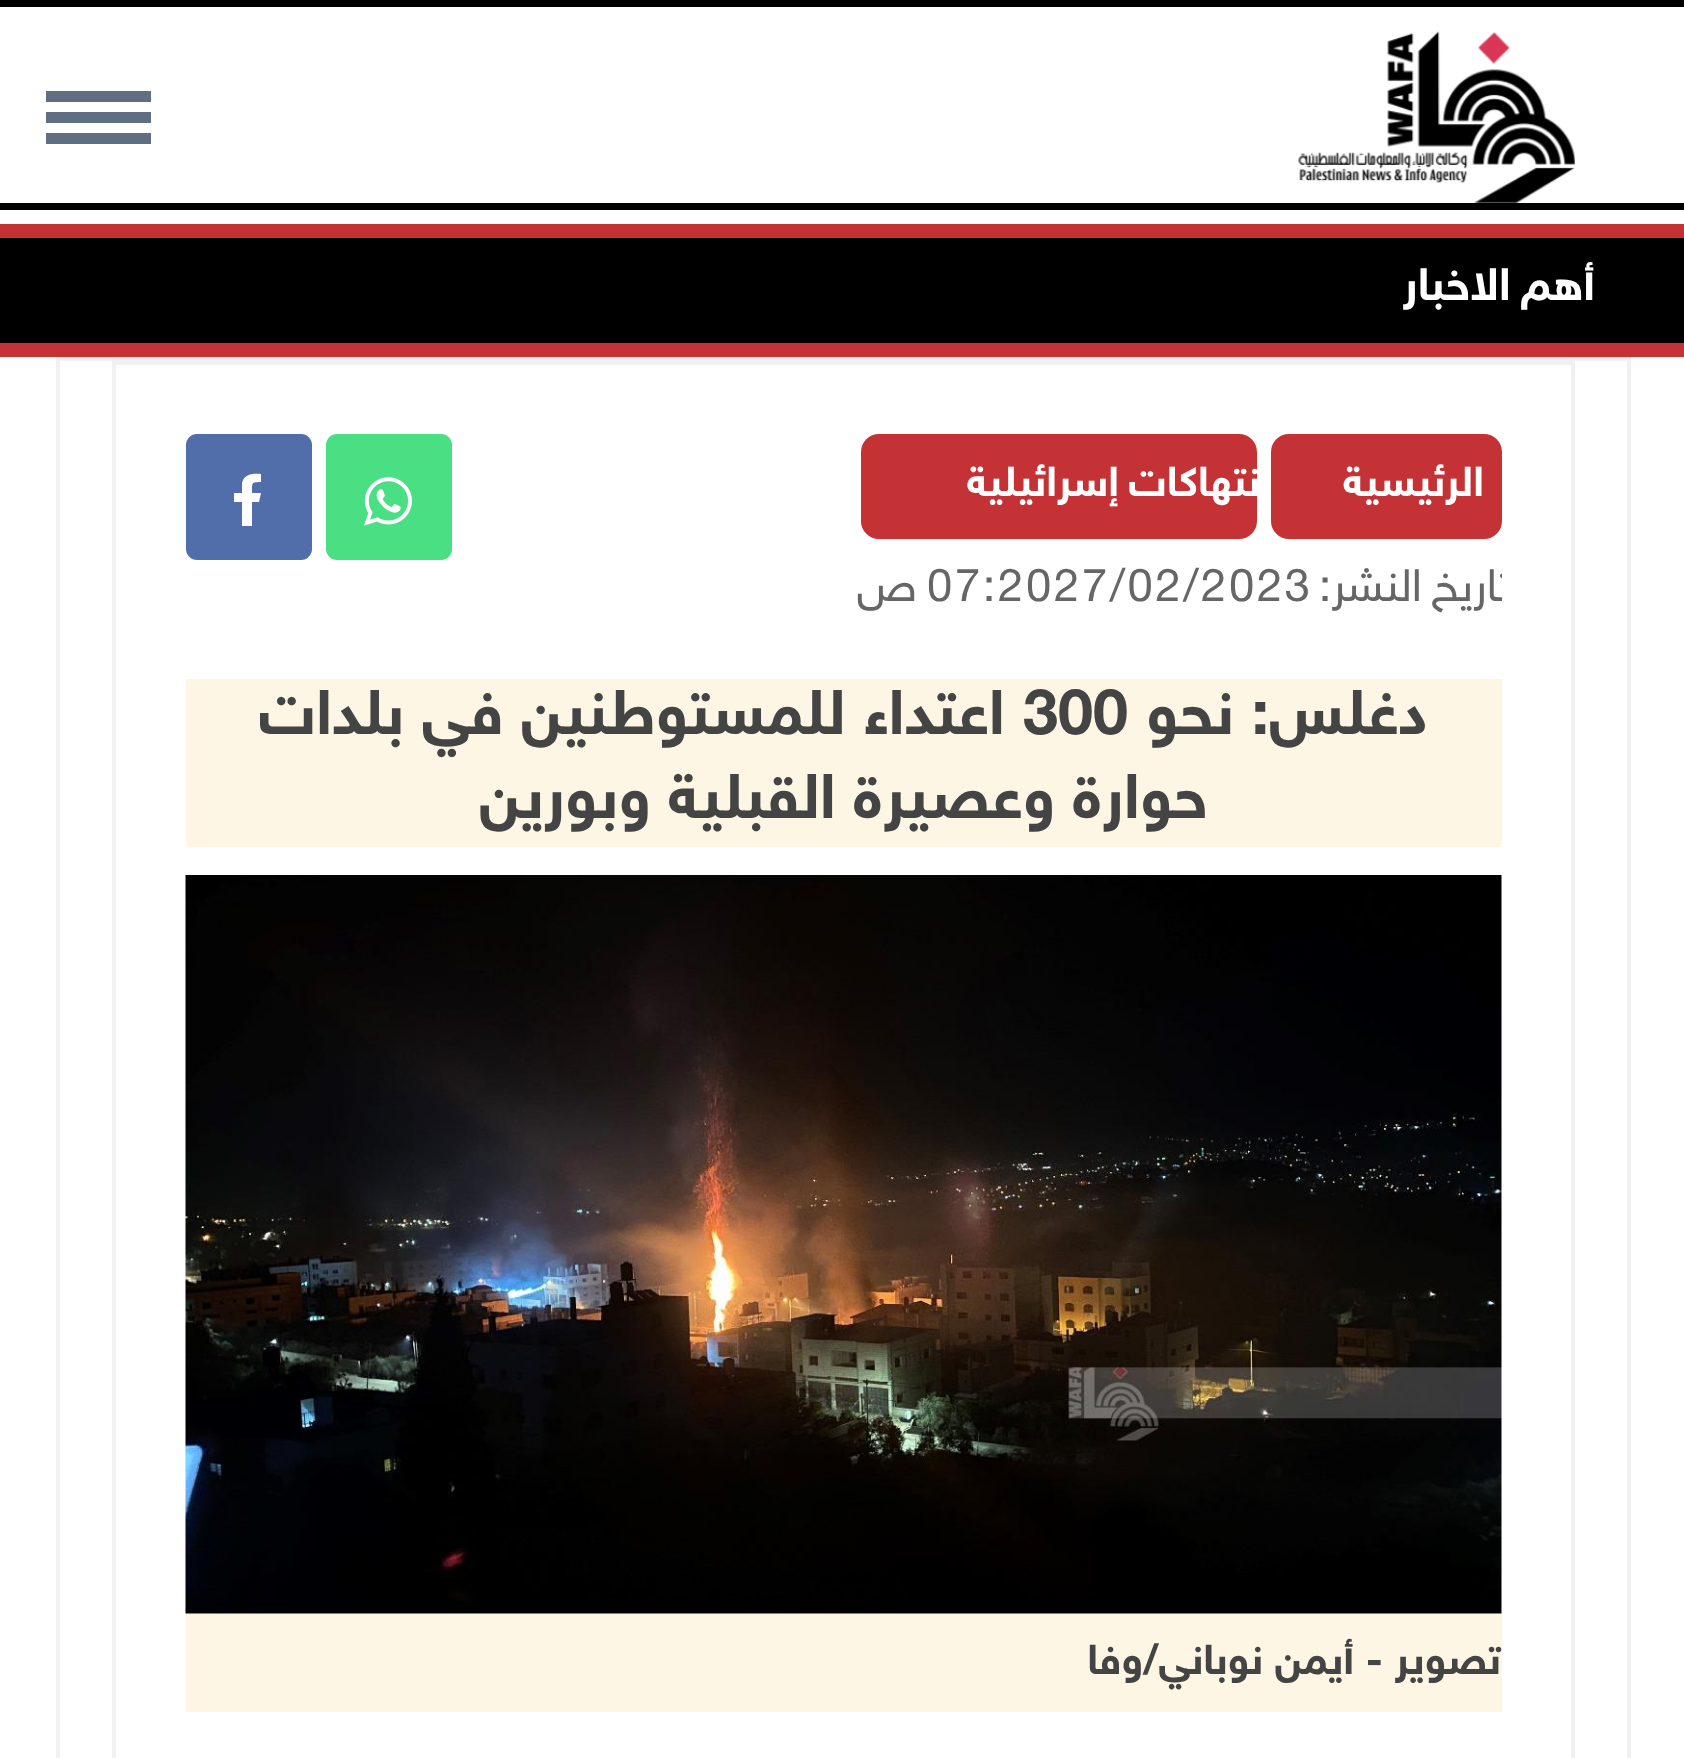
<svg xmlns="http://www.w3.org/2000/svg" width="1684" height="1758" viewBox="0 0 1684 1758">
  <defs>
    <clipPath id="clip1"><rect x="186" y="434" width="1316" height="245"/></clipPath>
  </defs>
  <rect width="100%" height="100%" fill="#ffffff"/>
  <rect x="0" y="0" width="1684" height="7" fill="#000000"/>
  <rect x="0" y="203" width="1684" height="7" fill="#000000"/>
  <image x="1298" y="31" width="277" height="172" href="img1.png"/>
  <rect x="46" y="91" width="105" height="11" fill="#5f6f81"/>
  <rect x="46" y="112" width="105" height="11" fill="#5f6f81"/>
  <rect x="46" y="133" width="105" height="11" fill="#5f6f81"/>
  <rect x="0" y="238" width="1684" height="105" fill="#000000"/>
  <rect x="0" y="224" width="1684" height="14" fill="#c43235"/>
  <rect x="0" y="343" width="1684" height="14" fill="#c43235"/>
  <text x="1595" y="300" word-spacing="-3" font-family="'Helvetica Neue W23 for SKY'" font-size="45.5" font-weight="bold" letter-spacing="1.75" direction="rtl" fill="#ffffff">أهم الاخبار</text>
  <rect x="58" y="359" width="1571" height="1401" fill="none" stroke="#f1f1f1" stroke-width="4"/>
  <rect x="114" y="363" width="1459" height="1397" fill="none" stroke="#f1f1f1" stroke-width="4"/>
  <rect x="1271" y="434" width="231" height="105" rx="18" fill="#c43235"/>
  <text x="1484" y="496" font-family="'Helvetica Neue W23 for SKY'" font-size="42" font-weight="bold" letter-spacing="3.5" direction="rtl" fill="#ffffff">الرئيسية</text>
  <rect x="861" y="434" width="396" height="105" rx="18" fill="#c43235"/>
  <text x="1271" y="496" word-spacing="-2" font-family="'Helvetica Neue W23 for SKY'" font-size="42" font-weight="bold" letter-spacing="3.5" direction="rtl" fill="#ffffff">انتهاكات إسرائيلية</text>
  <rect x="326" y="434" width="126" height="126" rx="11" fill="#4adf83"/>
  <image x="364" y="477" width="48" height="49" href="img2.png"/>
  <rect x="186" y="434" width="126" height="126" rx="11" fill="#516eab"/>
  <path d="M261 474V482C251 482 252 483 252 493H261L259 502H252V526H242V502H234V493H242V483C244 474 253 473 261 474Z" fill="#ffffff"/>
  <text x="1054" y="601" font-family="'Helvetica Neue W23 for SKY'" font-size="45.5" letter-spacing="2.6" fill="#666666">27/02/2023</text>
  <g clip-path="url(#clip1)">
    <text x="1511" y="601" word-spacing="-3" font-family="'Helvetica Neue W23 for SKY'" font-size="45.5" letter-spacing="2.6" direction="rtl" fill="#666666">تاريخ النشر:</text>
  </g>
  <text x="927" y="601" font-family="'Helvetica Neue W23 for SKY'" font-size="45.5" letter-spacing="2.6" fill="#666666">07:20</text>
  <text x="917" y="601" font-family="'Helvetica Neue W23 for SKY'" font-size="45.5" letter-spacing="2.6" direction="rtl" fill="#666666">ص</text>
  <rect x="186" y="679" width="1316" height="168" fill="#fdf6e4"/>
  <text x="1428" y="734" font-family="'Helvetica Neue W23 for SKY'" font-size="63" font-weight="bold" direction="rtl" fill="#444444">دغلس: نحو</text>
  <text x="1023" y="734" font-family="'Helvetica Neue W23 for SKY'" font-size="63" font-weight="bold" fill="#444444">300</text>
  <text x="1005" y="734" font-family="'Helvetica Neue W23 for SKY'" font-size="63" font-weight="bold" direction="rtl" fill="#444444">اعتداء للمستوطنين في بلدات</text>
  <text x="1208" y="818" font-family="'Helvetica Neue W23 for SKY'" font-size="63" font-weight="bold" direction="rtl" fill="#444444">حوارة وعصيرة القبلية وبورين</text>
  <image x="185" y="875" width="1317" height="739" href="img3.png"/>
  <rect x="186" y="1614" width="1316" height="98" fill="#fdf6e4"/>
  <text x="1501" y="1674" font-family="'Helvetica Neue W23 for SKY'" font-size="42" font-weight="bold" direction="rtl" fill="#444444">تصوير - أيمن نوباني/وفا</text>
</svg>
